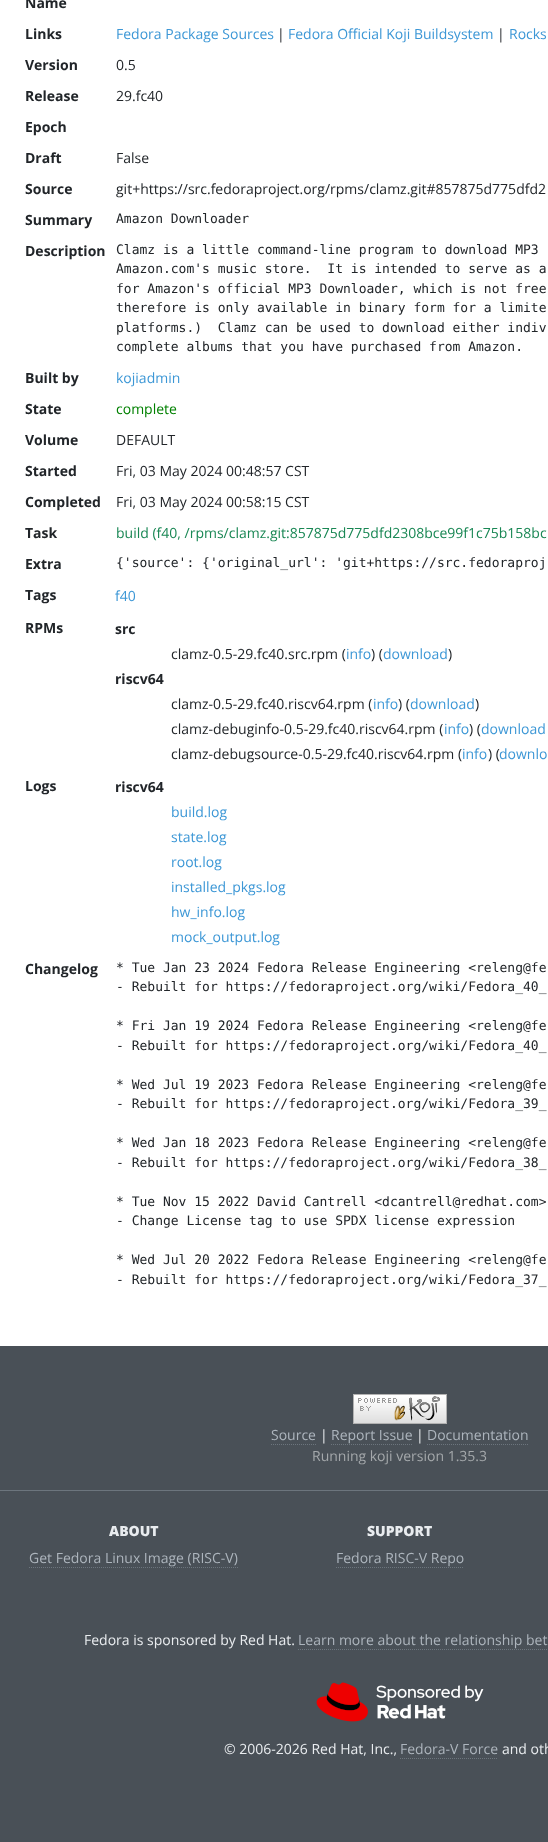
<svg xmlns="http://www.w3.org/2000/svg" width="548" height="1842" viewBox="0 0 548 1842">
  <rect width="100%" height="100%" fill="#ffffff"/>
  <text x="25" y="8" font-family="Open Sans" font-size="14" font-weight="bold" fill="#212529">Name</text>
  <text x="25" y="39" font-family="Open Sans" font-size="14" font-weight="bold" fill="#212529">Links</text>
  <text x="116" y="39" font-family="Open Sans" font-size="14" fill="#3c97d6">Fedora Package Sources</text>
  <text x="277" y="39" font-family="Open Sans" font-size="14" fill="#212529">|</text>
  <text x="288" y="39" font-family="Open Sans" font-size="14" fill="#3c97d6">Fedora Official Koji Buildsystem</text>
  <text x="497" y="39" font-family="Open Sans" font-size="14" fill="#212529">|</text>
  <text x="509" y="39" font-family="Open Sans" font-size="14" fill="#3c97d6">Rocks</text>
  <text x="25" y="70" font-family="Open Sans" font-size="14" font-weight="bold" fill="#212529">Version</text>
  <text x="116" y="70" font-family="Open Sans" font-size="14" fill="#212529">0.5</text>
  <text x="25" y="101" font-family="Open Sans" font-size="14" font-weight="bold" fill="#212529">Release</text>
  <text x="116" y="101" font-family="Open Sans" font-size="14" fill="#212529">29.fc40</text>
  <text x="25" y="132" font-family="Open Sans" font-size="14" font-weight="bold" fill="#212529">Epoch</text>
  <text x="25" y="163" font-family="Open Sans" font-size="14" font-weight="bold" fill="#212529">Draft</text>
  <text x="116" y="163" font-family="Open Sans" font-size="14" fill="#212529">False</text>
  <text x="25" y="194" font-family="Open Sans" font-size="14" font-weight="bold" fill="#212529">Source</text>
  <text x="116" y="194" font-family="Open Sans" font-size="14" fill="#212529">git+https://src.fedoraproject.org/rpms/clamz.git#857875d775dfd2</text>
  <text x="25" y="225" font-family="Open Sans" font-size="14" font-weight="bold" fill="#212529">Summary</text>
  <text x="116" y="223" font-family="DejaVu Sans Mono" font-size="13" fill="#212529">Amazon Downloader</text>
  <text x="25" y="256" font-family="Open Sans" font-size="14" font-weight="bold" fill="#212529">Description</text>
  <text x="116" y="254" font-family="DejaVu Sans Mono" font-size="13" fill="#212529">Clamz is a little command-line program to download MP3</text>
  <text x="116" y="273" font-family="DejaVu Sans Mono" font-size="13" fill="#212529" xml:space="preserve">Amazon.com's music store.  It is intended to serve as a</text>
  <text x="116" y="293" font-family="DejaVu Sans Mono" font-size="13" fill="#212529">for Amazon's official MP3 Downloader, which is not free</text>
  <text x="116" y="312" font-family="DejaVu Sans Mono" font-size="13" fill="#212529">therefore is only available in binary form for a limite</text>
  <text x="116" y="332" font-family="DejaVu Sans Mono" font-size="13" fill="#212529" xml:space="preserve">platforms.)  Clamz can be used to download either indiv</text>
  <text x="116" y="351" font-family="DejaVu Sans Mono" font-size="13" fill="#212529">complete albums that you have purchased from Amazon.</text>
  <text x="25" y="383" font-family="Open Sans" font-size="14" font-weight="bold" fill="#212529">Built by</text>
  <text x="116" y="383" font-family="Open Sans" font-size="14" fill="#3c97d6">kojiadmin</text>
  <text x="25" y="414" font-family="Open Sans" font-size="14" font-weight="bold" fill="#212529">State</text>
  <text x="116" y="414" font-family="Open Sans" font-size="14" fill="#008000">complete</text>
  <text x="25" y="445" font-family="Open Sans" font-size="14" font-weight="bold" fill="#212529">Volume</text>
  <text x="116" y="445" font-family="Open Sans" font-size="14" fill="#212529">DEFAULT</text>
  <text x="25" y="476" font-family="Open Sans" font-size="14" font-weight="bold" fill="#212529">Started</text>
  <text x="116" y="476" font-family="Open Sans" font-size="14" fill="#212529">Fri, 03 May 2024 00:48:57 CST</text>
  <text x="25" y="507" font-family="Open Sans" font-size="14" font-weight="bold" fill="#212529">Completed</text>
  <text x="116" y="507" font-family="Open Sans" font-size="14" fill="#212529">Fri, 03 May 2024 00:58:15 CST</text>
  <text x="25" y="538" font-family="Open Sans" font-size="14" font-weight="bold" fill="#212529">Task</text>
  <text x="116" y="538" font-family="Open Sans" font-size="14" fill="#198754">build (f40, /rpms/clamz.git:857875d775dfd2308bce99f1c75b158bc</text>
  <text x="25" y="569" font-family="Open Sans" font-size="14" font-weight="bold" fill="#212529">Extra</text>
  <text x="116" y="567" font-family="DejaVu Sans Mono" font-size="13" fill="#212529">{'source': {'original_url': 'git+https://src.fedoraproj</text>
  <text x="25" y="600" font-family="Open Sans" font-size="14" font-weight="bold" fill="#212529">Tags</text>
  <text x="115" y="601" font-family="Open Sans" font-size="14" fill="#3c97d6">f40</text>
  <text x="25" y="633" font-family="Open Sans" font-size="14" font-weight="bold" fill="#212529">RPMs</text>
  <text x="115" y="634" font-family="Open Sans" font-size="14" font-weight="bold" fill="#212529">src</text>
  <text x="171" y="659" font-family="Open Sans" font-size="14" fill="#212529">clamz-0.5-29.fc40.src.rpm (</text>
  <text x="346" y="659" font-family="Open Sans" font-size="14" fill="#3c97d6">info</text>
  <text x="371" y="659" font-family="Open Sans" font-size="14" fill="#212529">) (</text>
  <text x="383" y="659" font-family="Open Sans" font-size="14" fill="#3c97d6">download</text>
  <text x="448" y="659" font-family="Open Sans" font-size="14" fill="#212529">)</text>
  <text x="115" y="684" font-family="Open Sans" font-size="14" font-weight="bold" fill="#212529">riscv64</text>
  <text x="171" y="709" font-family="Open Sans" font-size="14" fill="#212529">clamz-0.5-29.fc40.riscv64.rpm (</text>
  <text x="373" y="709" font-family="Open Sans" font-size="14" fill="#3c97d6">info</text>
  <text x="398" y="709" font-family="Open Sans" font-size="14" fill="#212529">) (</text>
  <text x="410" y="709" font-family="Open Sans" font-size="14" fill="#3c97d6">download</text>
  <text x="475" y="709" font-family="Open Sans" font-size="14" fill="#212529">)</text>
  <text x="171" y="734" font-family="Open Sans" font-size="14" fill="#212529">clamz-debuginfo-0.5-29.fc40.riscv64.rpm (</text>
  <text x="444" y="734" font-family="Open Sans" font-size="14" fill="#3c97d6">info</text>
  <text x="469" y="734" font-family="Open Sans" font-size="14" fill="#212529">) (</text>
  <text x="481" y="734" font-family="Open Sans" font-size="14" fill="#3c97d6">download</text>
  <text x="171" y="759" font-family="Open Sans" font-size="14" fill="#212529">clamz-debugsource-0.5-29.fc40.riscv64.rpm (</text>
  <text x="462" y="759" font-family="Open Sans" font-size="14" fill="#3c97d6">info</text>
  <text x="488" y="759" font-family="Open Sans" font-size="14" fill="#212529">) (</text>
  <text x="499" y="759" font-family="Open Sans" font-size="14" fill="#3c97d6">downlo</text>
  <text x="25" y="791" font-family="Open Sans" font-size="14" font-weight="bold" fill="#212529">Logs</text>
  <text x="115" y="792" font-family="Open Sans" font-size="14" font-weight="bold" fill="#212529">riscv64</text>
  <text x="171" y="817" font-family="Open Sans" font-size="14" fill="#3c97d6">build.log</text>
  <text x="171" y="842" font-family="Open Sans" font-size="14" fill="#3c97d6">state.log</text>
  <text x="171" y="867" font-family="Open Sans" font-size="14" fill="#3c97d6">root.log</text>
  <text x="171" y="892" font-family="Open Sans" font-size="14" fill="#3c97d6">installed_pkgs.log</text>
  <text x="171" y="917" font-family="Open Sans" font-size="14" fill="#3c97d6">hw_info.log</text>
  <text x="171" y="942" font-family="Open Sans" font-size="14" fill="#3c97d6">mock_output.log</text>
  <text x="25" y="974" font-family="Open Sans" font-size="14" font-weight="bold" fill="#212529">Changelog</text>
  <text x="116" y="972" font-family="DejaVu Sans Mono" font-size="13" fill="#212529">* Tue Jan 23 2024 Fedora Release Engineering &lt;releng@fe</text>
  <text x="116" y="991" font-family="DejaVu Sans Mono" font-size="13" fill="#212529">- Rebuilt for https://fedoraproject.org/wiki/Fedora_40_</text>
  <text x="116" y="1030" font-family="DejaVu Sans Mono" font-size="13" fill="#212529">* Fri Jan 19 2024 Fedora Release Engineering &lt;releng@fe</text>
  <text x="116" y="1050" font-family="DejaVu Sans Mono" font-size="13" fill="#212529">- Rebuilt for https://fedoraproject.org/wiki/Fedora_40_</text>
  <text x="116" y="1089" font-family="DejaVu Sans Mono" font-size="13" fill="#212529">* Wed Jul 19 2023 Fedora Release Engineering &lt;releng@fe</text>
  <text x="116" y="1108" font-family="DejaVu Sans Mono" font-size="13" fill="#212529">- Rebuilt for https://fedoraproject.org/wiki/Fedora_39_</text>
  <text x="116" y="1147" font-family="DejaVu Sans Mono" font-size="13" fill="#212529">* Wed Jan 18 2023 Fedora Release Engineering &lt;releng@fe</text>
  <text x="116" y="1167" font-family="DejaVu Sans Mono" font-size="13" fill="#212529">- Rebuilt for https://fedoraproject.org/wiki/Fedora_38_</text>
  <text x="116" y="1206" font-family="DejaVu Sans Mono" font-size="13" fill="#212529">* Tue Nov 15 2022 David Cantrell &lt;dcantrell@redhat.com&gt;</text>
  <text x="116" y="1225" font-family="DejaVu Sans Mono" font-size="13" fill="#212529">- Change License tag to use SPDX license expression</text>
  <text x="116" y="1264" font-family="DejaVu Sans Mono" font-size="13" fill="#212529">* Wed Jul 20 2022 Fedora Release Engineering &lt;releng@fe</text>
  <text x="116" y="1284" font-family="DejaVu Sans Mono" font-size="13" fill="#212529">- Rebuilt for https://fedoraproject.org/wiki/Fedora_37_</text>
  <rect x="0" y="1346" width="548" height="496" fill="#495057"/>
  <path d="M353 1416.5H447" fill="none" stroke="#6c757d" stroke-dasharray="1 1"/>
  <image x="353" y="1394" width="94" height="30" href="img1.png"/>
  <text x="271" y="1440" font-family="Open Sans" font-size="14" fill="#adb5bd">Source</text>
  <path d="M271 1444.5H316" fill="none" stroke="#6c757d" stroke-dasharray="1 1"/>
  <text x="320" y="1440" font-family="Open Sans" font-size="14" fill="#e9ecef">|</text>
  <text x="331" y="1440" font-family="Open Sans" font-size="14" fill="#adb5bd">Report Issue</text>
  <path d="M331 1444.5H412" fill="none" stroke="#6c757d" stroke-dasharray="1 1"/>
  <text x="416" y="1440" font-family="Open Sans" font-size="14" fill="#e9ecef">|</text>
  <text x="427" y="1440" font-family="Open Sans" font-size="14" fill="#adb5bd">Documentation</text>
  <path d="M427 1444.5H529" fill="none" stroke="#6c757d" stroke-dasharray="1 1"/>
  <text x="312" y="1461" font-family="Open Sans" font-size="14" fill="#a4a8ab">Running koji version 1.35.3</text>
  <rect x="0" y="1490" width="548" height="1" fill="#6c757d"/>
  <text x="109" y="1536" font-family="Open Sans" font-size="14" font-weight="800" fill="#e9ecef">ABOUT</text>
  <text x="29" y="1563" font-family="Open Sans" font-size="14" fill="#adb5bd">Get Fedora Linux Image (RISC-V)</text>
  <path d="M29 1567.5H238" fill="none" stroke="#6c757d" stroke-dasharray="1 1"/>
  <text x="367" y="1536" font-family="Open Sans" font-size="14" font-weight="800" fill="#e9ecef">SUPPORT</text>
  <text x="336" y="1563" font-family="Open Sans" font-size="14" fill="#adb5bd">Fedora RISC-V Repo</text>
  <path d="M336 1567.5H464" fill="none" stroke="#6c757d" stroke-dasharray="1 1"/>
  <text x="84" y="1645" font-family="Open Sans" font-size="14" fill="#e9ecef">Fedora is sponsored by Red Hat.</text>
  <text x="298" y="1645" font-family="Open Sans" font-size="14" fill="#adb5bd">Learn more about the relationship bet</text>
  <path d="M298 1649.5H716" fill="none" stroke="#6c757d" stroke-dasharray="1 1"/>
  <image x="316" y="1682" width="168" height="40" href="img2.png"/>
  <text x="224" y="1754" font-family="Open Sans" font-size="14" fill="#e9ecef">© 2006-2026 Red Hat, Inc.,</text>
  <text x="400" y="1754" font-family="Open Sans" font-size="14" fill="#adb5bd">Fedora-V Force</text>
  <path d="M400 1758.5H498" fill="none" stroke="#6c757d" stroke-dasharray="1 1"/>
  <text x="502" y="1754" font-family="Open Sans" font-size="14" fill="#e9ecef">and oth</text>
</svg>
